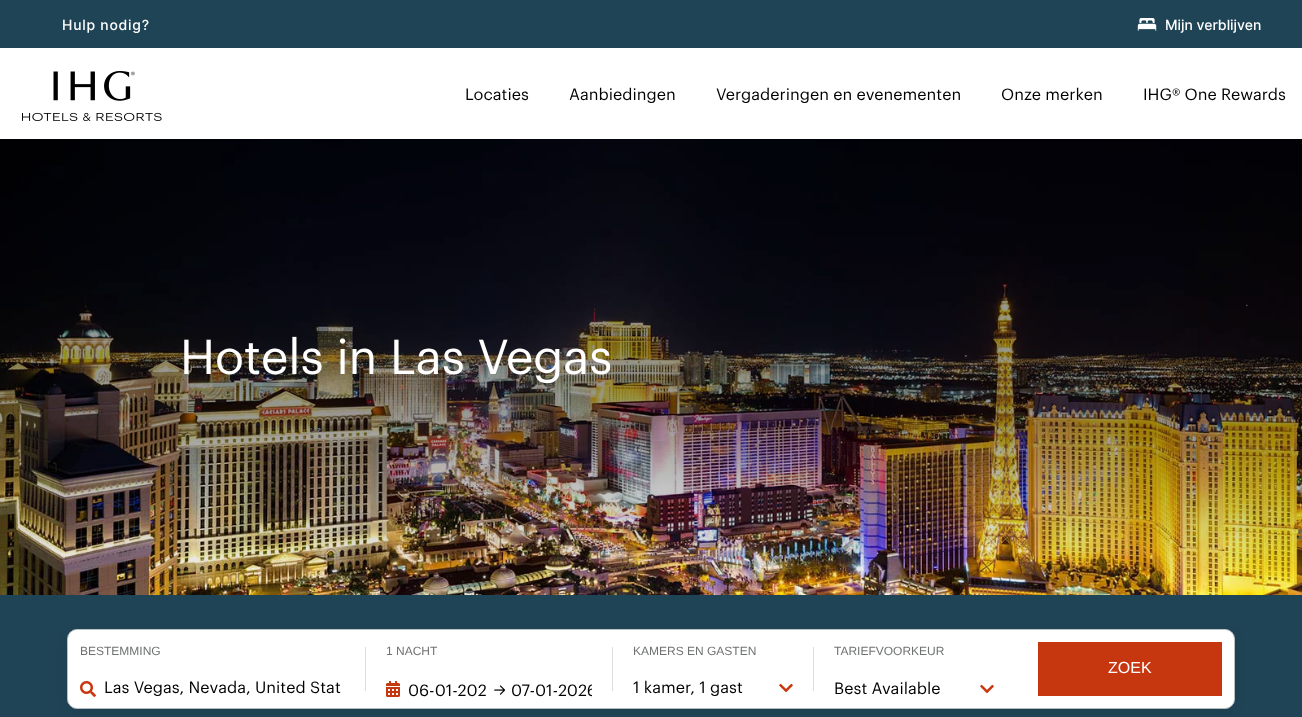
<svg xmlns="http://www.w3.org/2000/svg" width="1302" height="717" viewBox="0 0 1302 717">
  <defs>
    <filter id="blur1" x="-50%" y="-200%" width="200%" height="500%"><feGaussianBlur stdDeviation="8"/></filter>
    <clipPath id="clip1"><rect x="511" y="679" width="81" height="24"/></clipPath>
  </defs>
  <rect width="100%" height="100%" fill="#ffffff"/>
  <rect x="0" y="0" width="1302" height="48" fill="#1f4456"/>
  <text x="62" y="30" font-family="Inter" font-size="14" font-weight="500" letter-spacing="0.75" fill="#ffffff">Hulp nodig?</text>
  <image x="1137" y="18" width="20" height="13" href="img1.png"/>
  <text x="1165" y="30" font-family="Inter" font-size="14" font-weight="500" fill="#ffffff">Mijn verblijven</text>
  <image x="22" y="71" width="140" height="50" href="img2.png"/>
  <text x="465" y="100" font-family="'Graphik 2'" font-size="16" fill="#000000">Locaties</text>
  <text x="569" y="100" font-family="'Graphik 2'" font-size="16" fill="#000000">Aanbiedingen</text>
  <text x="716" y="100" font-family="'Graphik 2'" font-size="16" fill="#000000">Vergaderingen en evenementen</text>
  <text x="1001" y="100" font-family="'Graphik 2'" font-size="16" fill="#000000">Onze merken</text>
  <text x="1143" y="100" font-family="'Graphik 2'" font-size="16" fill="#000000">IHG® One Rewards</text>
  <image x="0" y="139" width="1302" height="456" href="img3.png"/>
  <text x="180" y="374" font-family="Graphik" font-size="48" fill="#ffffff">Hotels in Las Vegas</text>
  <rect x="0" y="595" width="1302" height="122" fill="#1f4456"/>
  <rect x="67.5" y="629.5" width="1167" height="79" rx="9.5" fill="#ffffff" stroke="#c2c7ca"/>
  <rect x="68" y="634" width="1166" height="78" rx="10" fill="#000000" fill-opacity="0.09" filter="url(#blur1)"/>
  <rect x="68" y="630" width="1166" height="78" rx="10" fill="#ffffff"/>
  <text x="80" y="655" font-family="Liberation Sans" font-size="12" fill="#707372">BESTEMMING</text>
  <image x="80" y="681" width="16" height="16" href="img4.png"/>
  <text x="104" y="693" font-family="'Graphik 2'" font-size="16" fill="#000000">Las Vegas, Nevada, United Stat</text>
  <rect x="365" y="647" width="1" height="44" fill="#dddddd"/>
  <text x="386" y="655" font-family="Liberation Sans" font-size="12" fill="#707372">1 NACHT</text>
  <image x="386" y="681" width="14" height="16" href="img5.png"/>
  <text x="408" y="696" font-family="'Graphik 2'" font-size="16" fill="#000000">06-01-202</text>
  <image x="494" y="685" width="12" height="10" href="img6.png"/>
  <g clip-path="url(#clip1)">
    <text x="511" y="696" font-family="'Graphik 2'" font-size="16" fill="#000000">07-01-2026</text>
  </g>
  <rect x="612" y="647" width="1" height="44" fill="#dddddd"/>
  <text x="633" y="655" font-family="Liberation Sans" font-size="12" fill="#707372">KAMERS EN GASTEN</text>
  <text x="633" y="693" font-family="'Graphik 2'" font-size="16" fill="#000000">1 kamer, 1 gast</text>
  <image x="779" y="683" width="14" height="10" href="img7.png"/>
  <rect x="813" y="647" width="1" height="44" fill="#dddddd"/>
  <text x="834" y="655" font-family="Liberation Sans" font-size="12" fill="#707372">TARIEFVOORKEUR</text>
  <text x="834" y="694" font-family="'Graphik 2'" font-size="16" fill="#000000">Best Available</text>
  <image x="980" y="684" width="14" height="10" href="img7.png"/>
  <rect x="1038" y="642" width="184" height="54" fill="#c7370f"/>
  <text x="1108" y="673" font-family="Liberation Sans" font-size="16" fill="#ffffff">ZOEK</text>
</svg>
